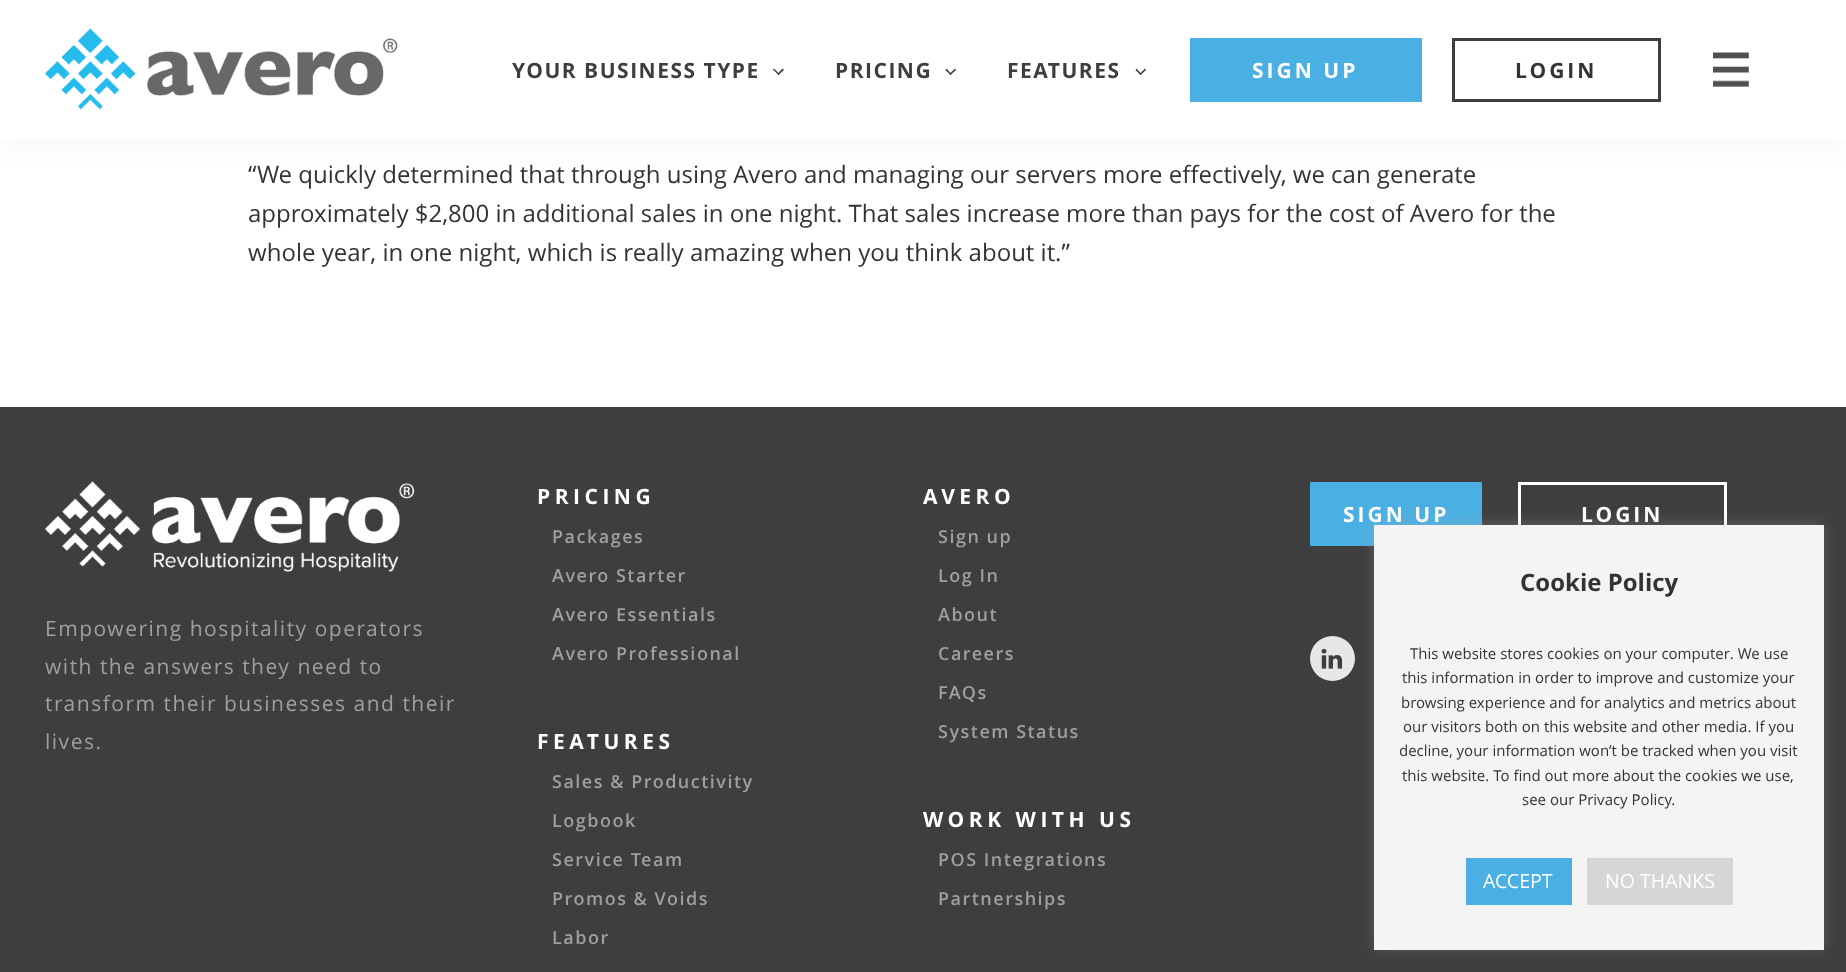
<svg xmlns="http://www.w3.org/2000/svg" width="1846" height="972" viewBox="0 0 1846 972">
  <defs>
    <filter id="blur1" x="-50%" y="-200%" width="200%" height="500%"><feGaussianBlur stdDeviation="15"/></filter>
    <filter id="blur2" x="-50%" y="-200%" width="200%" height="500%"><feGaussianBlur stdDeviation="7.5"/></filter>
  </defs>
  <rect width="100%" height="100%" fill="#ffffff"/>
  <rect x="0" y="0" width="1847" height="140" fill="#000000" fill-opacity="0.05" filter="url(#blur1)"/>
  <rect x="0" y="0" width="1846" height="140" fill="#ffffff"/>
  <image x="45" y="28" width="353" height="82" href="img1.png"/>
  <text x="512" y="78" font-family="Open Sans" font-size="21" font-weight="bold" letter-spacing="1.5" fill="#3e3e3e">YOUR BUSINESS TYPE</text>
  <path d="M782.5 68.5L784 70L778.5 75L777.5 74Z" fill="#3e3e3e"/>
  <path d="M774 68.5L779.5 74L778.5 75L773 69.5Z" fill="#3e3e3e"/>
  <text x="835" y="78" font-family="Open Sans" font-size="21" font-weight="bold" letter-spacing="1.5" fill="#3e3e3e">PRICING</text>
  <path d="M955 68.5L956 70L950.5 75L949.5 74Z" fill="#3e3e3e"/>
  <path d="M946.5 68.5L951.5 74L950.5 75L945.5 70Z" fill="#3e3e3e"/>
  <text x="1007" y="78" font-family="Open Sans" font-size="21" font-weight="bold" letter-spacing="1.5" fill="#3e3e3e">FEATURES</text>
  <path d="M1145 68.5L1146 70L1140.5 75L1139.5 74Z" fill="#3e3e3e"/>
  <path d="M1136.5 68.5L1141.5 74L1140.5 75L1135.5 70Z" fill="#3e3e3e"/>
  <rect x="1190" y="38" width="232" height="64" fill="#4aafe3"/>
  <text x="1252" y="78" font-family="Open Sans" font-size="21" font-weight="bold" letter-spacing="3" fill="#ffffff">SIGN UP</text>
  <rect x="1453.5" y="39.5" width="206" height="61" fill="none" stroke="#3e3e3e" stroke-width="3"/>
  <text x="1515" y="78" font-family="Open Sans" font-size="21" font-weight="bold" letter-spacing="3" fill="#333333">LOGIN</text>
  <image x="1713" y="52" width="36" height="35" href="img2.png"/>
  <text x="248" y="183" font-family="Open Sans" font-size="24" fill="#333333">“We quickly determined that through using Avero and managing our servers more effectively, we can generate</text>
  <text x="248" y="222" font-family="Open Sans" font-size="24" fill="#333333">approximately $2,800 in additional sales in one night. That sales increase more than pays for the cost of Avero for the</text>
  <text x="248" y="261" font-family="Open Sans" font-size="24" fill="#333333">whole year, in one night, which is really amazing when you think about it.”</text>
  <rect x="0" y="407" width="1846" height="565" fill="#3e3e3e"/>
  <text x="537" y="504" font-family="Open Sans" font-size="21" font-weight="bold" letter-spacing="4.5" fill="#ffffff">PRICING</text>
  <text x="552" y="543" font-family="Open Sans" font-size="18" font-weight="600" letter-spacing="1.5" fill="#9f9f9f">Packages</text>
  <text x="552" y="582" font-family="Open Sans" font-size="18" font-weight="600" letter-spacing="1.5" fill="#9f9f9f">Avero Starter</text>
  <text x="552" y="621" font-family="Open Sans" font-size="18" font-weight="600" letter-spacing="1.5" fill="#9f9f9f">Avero Essentials</text>
  <text x="552" y="660" font-family="Open Sans" font-size="18" font-weight="600" letter-spacing="1.5" fill="#9f9f9f">Avero Professional</text>
  <text x="537" y="749" font-family="Open Sans" font-size="21" font-weight="bold" letter-spacing="4.5" fill="#ffffff">FEATURES</text>
  <text x="552" y="788" font-family="Open Sans" font-size="18" font-weight="600" letter-spacing="1.5" fill="#9f9f9f">Sales &amp; Productivity</text>
  <text x="552" y="827" font-family="Open Sans" font-size="18" font-weight="600" letter-spacing="1.5" fill="#9f9f9f">Logbook</text>
  <text x="552" y="866" font-family="Open Sans" font-size="18" font-weight="600" letter-spacing="1.5" fill="#9f9f9f">Service Team</text>
  <text x="552" y="905" font-family="Open Sans" font-size="18" font-weight="600" letter-spacing="1.5" fill="#9f9f9f">Promos &amp; Voids</text>
  <text x="552" y="944" font-family="Open Sans" font-size="18" font-weight="600" letter-spacing="1.5" fill="#9f9f9f">Labor</text>
  <text x="923" y="504" font-family="Open Sans" font-size="21" font-weight="bold" letter-spacing="4.5" fill="#ffffff">AVERO</text>
  <text x="938" y="543" font-family="Open Sans" font-size="18" font-weight="600" letter-spacing="1.5" fill="#9f9f9f">Sign up</text>
  <text x="938" y="582" font-family="Open Sans" font-size="18" font-weight="600" letter-spacing="1.5" fill="#9f9f9f">Log In</text>
  <text x="938" y="621" font-family="Open Sans" font-size="18" font-weight="600" letter-spacing="1.5" fill="#9f9f9f">About</text>
  <text x="938" y="660" font-family="Open Sans" font-size="18" font-weight="600" letter-spacing="1.5" fill="#9f9f9f">Careers</text>
  <text x="938" y="699" font-family="Open Sans" font-size="18" font-weight="600" letter-spacing="1.5" fill="#9f9f9f">FAQs</text>
  <text x="938" y="738" font-family="Open Sans" font-size="18" font-weight="600" letter-spacing="1.5" fill="#9f9f9f">System Status</text>
  <text x="923" y="827" font-family="Open Sans" font-size="21" font-weight="bold" letter-spacing="4.5" fill="#ffffff">WORK WITH US</text>
  <text x="938" y="866" font-family="Open Sans" font-size="18" font-weight="600" letter-spacing="1.5" fill="#9f9f9f">POS Integrations</text>
  <text x="938" y="905" font-family="Open Sans" font-size="18" font-weight="600" letter-spacing="1.5" fill="#9f9f9f">Partnerships</text>
  <rect x="1310" y="482" width="172" height="64" fill="#4aafe3"/>
  <text x="1343" y="522" font-family="Open Sans" font-size="21" font-weight="bold" letter-spacing="3" fill="#ffffff">SIGN UP</text>
  <rect x="1519.5" y="483.5" width="206" height="61" fill="none" stroke="#ffffff" stroke-width="3"/>
  <text x="1581" y="522" font-family="Open Sans" font-size="21" font-weight="bold" letter-spacing="3" fill="#ffffff">LOGIN</text>
  <circle cx="1332.5" cy="658.5" r="22.5" fill="#e6e7e8"/>
  <image x="1321" y="649" width="22" height="20" href="img3.png"/>
  <image x="45" y="481" width="369" height="91" href="img4.png"/>
  <text x="45" y="636" font-family="Open Sans" font-size="21" letter-spacing="1.5" fill="#9f9f9f">Empowering hospitality operators</text>
  <text x="45" y="674" font-family="Open Sans" font-size="21" letter-spacing="1.5" fill="#9f9f9f">with the answers they need to</text>
  <text x="45" y="711" font-family="Open Sans" font-size="21" letter-spacing="1.5" fill="#9f9f9f">transform their businesses and their</text>
  <text x="45" y="749" font-family="Open Sans" font-size="21" letter-spacing="1.5" fill="#9f9f9f">lives.</text>
  <rect x="1374" y="524" width="450" height="424" fill="#acabab" fill-opacity="0.3" filter="url(#blur2)"/>
  <rect x="1374" y="525" width="450" height="425" fill="#f4f4f4"/>
  <text x="1520" y="591" font-family="Open Sans" font-size="24" font-weight="bold" fill="#333333">Cookie Policy</text>
  <text x="1410" y="659" font-family="Open Sans" font-size="15" fill="#333333">This website stores cookies on your computer. We use</text>
  <text x="1402" y="683" font-family="Open Sans" font-size="15" fill="#333333">this information in order to improve and customize your</text>
  <text x="1401" y="708" font-family="Open Sans" font-size="15" fill="#333333">browsing experience and for analytics and metrics about</text>
  <text x="1403" y="732" font-family="Open Sans" font-size="15" fill="#333333">our visitors both on this website and other media. If you</text>
  <text x="1399" y="756" font-family="Open Sans" font-size="15" fill="#333333">decline, your information won’t be tracked when you visit</text>
  <text x="1402" y="781" font-family="Open Sans" font-size="15" fill="#333333">this website. To find out more about the cookies we use,</text>
  <text x="1522" y="805" font-family="Open Sans" font-size="15" fill="#333333">see our Privacy Policy.</text>
  <rect x="1466" y="858" width="106" height="47" fill="#4aafe3"/>
  <text x="1483" y="888" font-family="Open Sans" font-size="19.5" fill="#ffffff">ACCEPT</text>
  <rect x="1587" y="858" width="146" height="47" fill="#d6d6d6"/>
  <text x="1605" y="888" font-family="Open Sans" font-size="19.5" fill="#ffffff">NO THANKS</text>
</svg>
